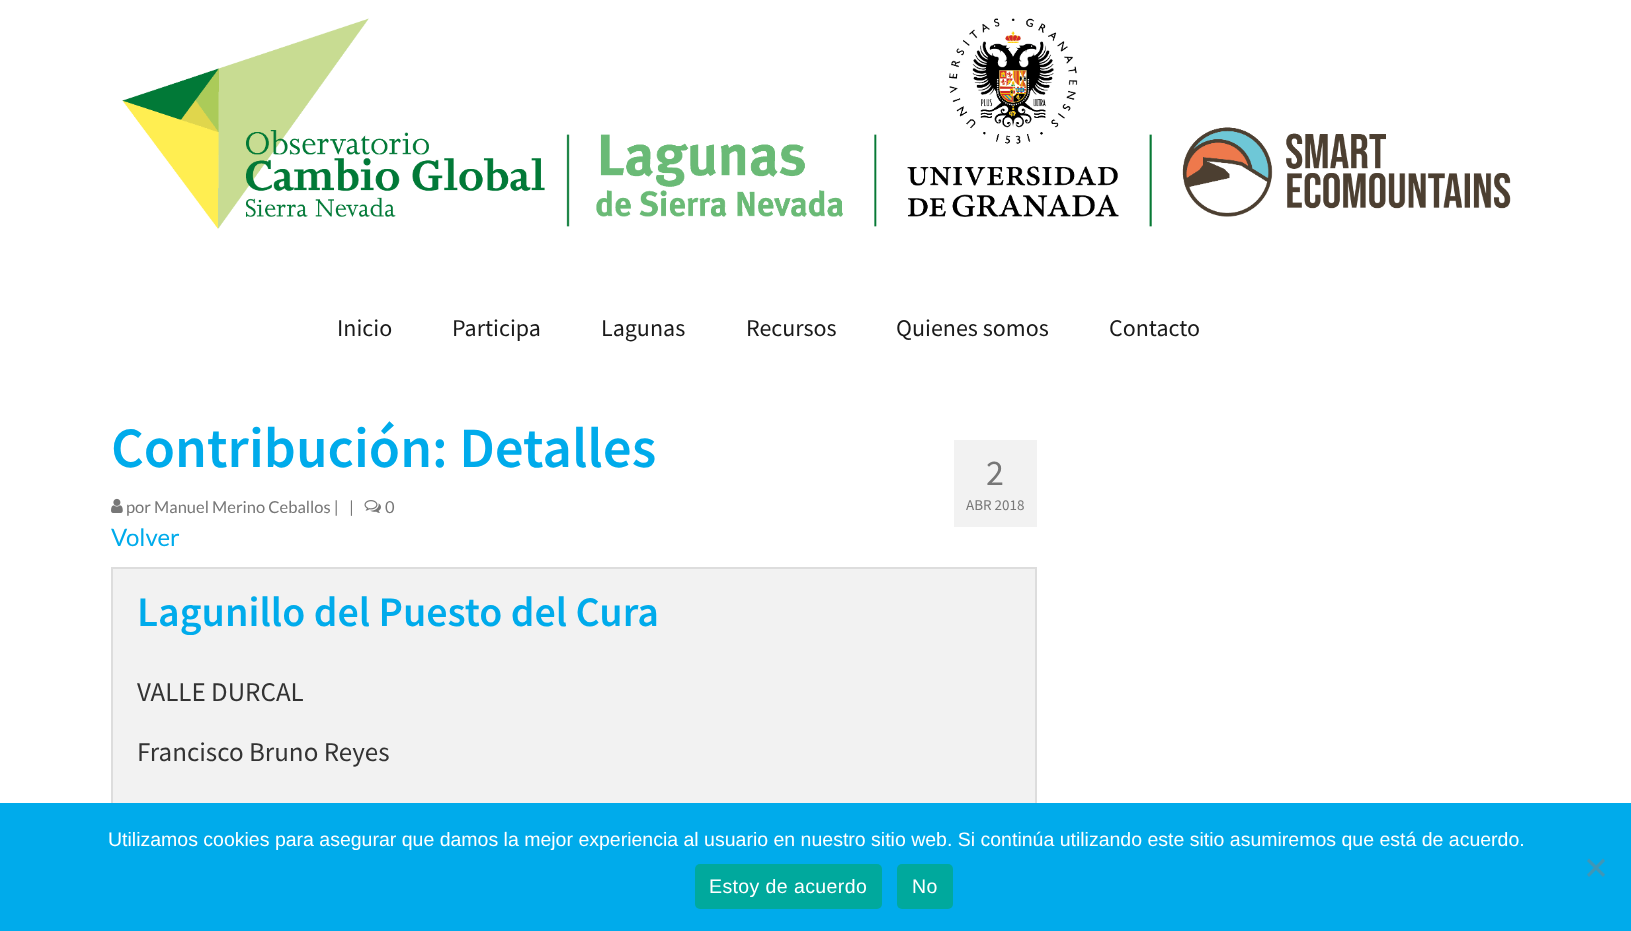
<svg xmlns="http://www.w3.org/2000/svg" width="1631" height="931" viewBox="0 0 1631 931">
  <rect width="100%" height="100%" fill="#ffffff"/>
  <image x="122" y="18" width="1389" height="211" href="img1.png"/>
  <text x="337" y="336" font-family="Source Sans Pro" font-size="24" fill="#1a1a1a">Inicio</text>
  <text x="452" y="336" font-family="Source Sans Pro" font-size="24" fill="#1a1a1a">Participa</text>
  <text x="601" y="336" font-family="Source Sans Pro" font-size="24" fill="#1a1a1a">Lagunas</text>
  <text x="746" y="336" font-family="Source Sans Pro" font-size="24" fill="#1a1a1a">Recursos</text>
  <text x="896" y="336" font-family="Source Sans Pro" font-size="24" fill="#1a1a1a">Quienes somos</text>
  <text x="1109" y="336" font-family="Source Sans Pro" font-size="24" fill="#1a1a1a">Contacto</text>
  <text x="111" y="467" font-family="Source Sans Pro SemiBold" font-size="57" font-weight="600" fill="#00abeb">Contribución: Detalles</text>
  <image x="111" y="498" width="12" height="15" href="img2.png"/>
  <text x="126" y="513" font-family="Lato" font-size="16.5" fill="#777777">por Manuel Merino Ceballos |</text>
  <text x="349" y="513" font-family="Lato" font-size="16.5" fill="#777777">|</text>
  <image x="364" y="500" width="17" height="13" href="img3.png"/>
  <text x="385" y="513" font-family="Lato" font-size="16.5" fill="#777777">0</text>
  <rect x="954" y="440" width="83" height="87" fill="#f2f2f2"/>
  <text x="986" y="485" font-family="Source Sans Pro" font-size="36" fill="#777777">2</text>
  <text x="966" y="510" font-family="Source Sans Pro" font-size="15" fill="#777777">ABR 2018</text>
  <text x="111" y="546" font-family="Lato" font-size="24" fill="#00abeb">Volver</text>
  <rect x="113" y="569" width="922" height="234" fill="#f2f2f2"/>
  <rect x="112" y="568" width="924" height="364" fill="none" stroke="#dddddd" stroke-width="2"/>
  <text x="137" y="626" font-family="Source Sans Pro SemiBold" font-size="42" font-weight="600" fill="#00abeb">Lagunillo del Puesto del Cura</text>
  <text x="137" y="701" font-family="Source Sans Pro" font-size="27" fill="#333333">VALLE DURCAL</text>
  <text x="137" y="761" font-family="Source Sans Pro" font-size="27" fill="#333333">Francisco Bruno Reyes</text>
  <rect x="0" y="803" width="1631" height="128" fill="#00abeb"/>
  <text x="108" y="846" font-family="Liberation Sans" font-size="19.5" fill="#ffffff">Utilizamos cookies para asegurar que damos la mejor experiencia al usuario en nuestro sitio web. Si continúa utilizando este sitio asumiremos que está de acuerdo.</text>
  <path d="M1603 858.5L1605 861L1589 877L1587 874.5Z" fill="#4096b6"/>
  <path d="M1587 861L1589 858.5L1605 874.5L1603 877Z" fill="#4096b6"/>
  <rect x="695" y="864" width="187" height="45" rx="5" fill="#00a99d"/>
  <text x="709" y="893" font-family="Liberation Sans" font-size="19.5" letter-spacing="0.4" fill="#ffffff">Estoy de acuerdo</text>
  <rect x="897" y="864" width="56" height="45" rx="5" fill="#00a99d"/>
  <text x="912" y="893" font-family="Liberation Sans" font-size="19.5" letter-spacing="0.4" fill="#ffffff">No</text>
</svg>
